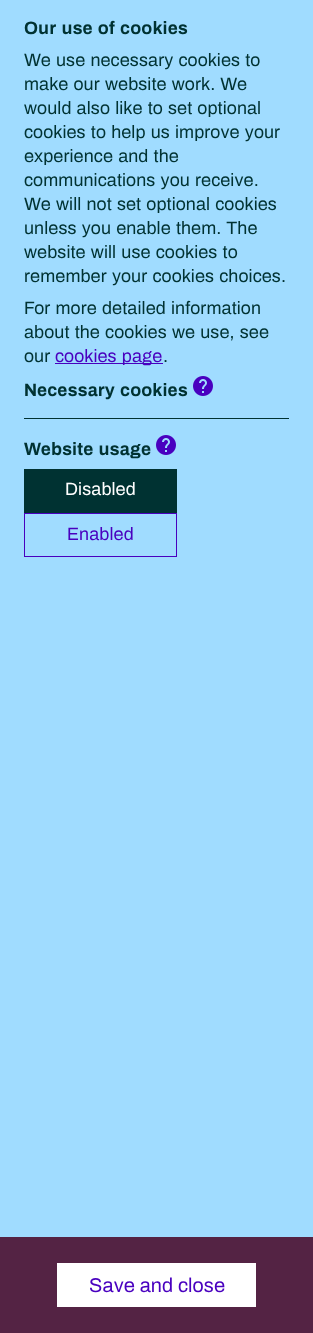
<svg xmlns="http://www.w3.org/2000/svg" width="313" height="1333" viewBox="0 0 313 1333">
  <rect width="100%" height="100%" fill="#a0dcff"/>
  <text x="24" y="34" font-family="Archivo" font-size="18" font-weight="bold" letter-spacing="0.1" fill="#003232">Our use of cookies</text>
  <text x="24" y="66" font-family="Archivo" font-size="18" letter-spacing="0.1" fill="#003232">We use necessary cookies to</text>
  <text x="24" y="90" font-family="Archivo" font-size="18" letter-spacing="0.1" fill="#003232">make our website work. We</text>
  <text x="24" y="114" font-family="Archivo" font-size="18" letter-spacing="0.1" fill="#003232">would also like to set optional</text>
  <text x="24" y="138" font-family="Archivo" font-size="18" letter-spacing="0.1" fill="#003232">cookies to help us improve your</text>
  <text x="24" y="162" font-family="Archivo" font-size="18" letter-spacing="0.1" fill="#003232">experience and the</text>
  <text x="24" y="186" font-family="Archivo" font-size="18" letter-spacing="0.1" fill="#003232">communications you receive.</text>
  <text x="24" y="210" font-family="Archivo" font-size="18" letter-spacing="0.1" fill="#003232">We will not set optional cookies</text>
  <text x="24" y="234" font-family="Archivo" font-size="18" letter-spacing="0.1" fill="#003232">unless you enable them. The</text>
  <text x="24" y="258" font-family="Archivo" font-size="18" letter-spacing="0.1" fill="#003232">website will use cookies to</text>
  <text x="24" y="282" font-family="Archivo" font-size="18" letter-spacing="0.1" fill="#003232">remember your cookies choices.</text>
  <text x="24" y="314" font-family="Archivo" font-size="18" letter-spacing="0.1" fill="#003232">For more detailed information</text>
  <text x="24" y="338" font-family="Archivo" font-size="18" letter-spacing="0.1" fill="#003232">about the cookies we use, see</text>
  <text x="24" y="362" font-family="Archivo" font-size="18" letter-spacing="0.1" fill="#003232">our</text>
  <rect x="55" y="363" width="108" height="1" fill="#4900bf"/>
  <text x="55" y="362" font-family="Archivo" font-size="18" letter-spacing="0.1" fill="#4900bf">cookies page</text>
  <text x="163" y="362" font-family="Archivo" font-size="18" letter-spacing="0.1" fill="#003232">.</text>
  <text x="24" y="396" font-family="Archivo" font-size="18" font-weight="bold" letter-spacing="0.1" fill="#003232">Necessary cookies</text>
  <image x="193" y="376" width="20" height="20" href="img1.png"/>
  <rect x="24" y="418" width="265" height="1" fill="#003232"/>
  <text x="24" y="455" font-family="Archivo" font-size="18" font-weight="bold" letter-spacing="0.1" fill="#003232">Website usage</text>
  <image x="156" y="435" width="20" height="20" href="img1.png"/>
  <rect x="24" y="469" width="153" height="44" fill="#003232"/>
  <text x="65" y="495" font-family="Archivo" font-size="18" letter-spacing="0.1" fill="#ffffff">Disabled</text>
  <rect x="24.5" y="513.5" width="152" height="43" fill="none" stroke="#4900bf"/>
  <text x="67" y="540" font-family="Archivo" font-size="18" letter-spacing="0.1" fill="#4900bf">Enabled</text>
  <rect x="0" y="1237" width="313" height="96" fill="#542344"/>
  <rect x="57" y="1263" width="199" height="44" fill="#ffffff"/>
  <text x="89" y="1292" word-spacing="-1" font-family="Archivo" font-size="20" letter-spacing="0.1" fill="#4900bf">Save and close</text>
</svg>
